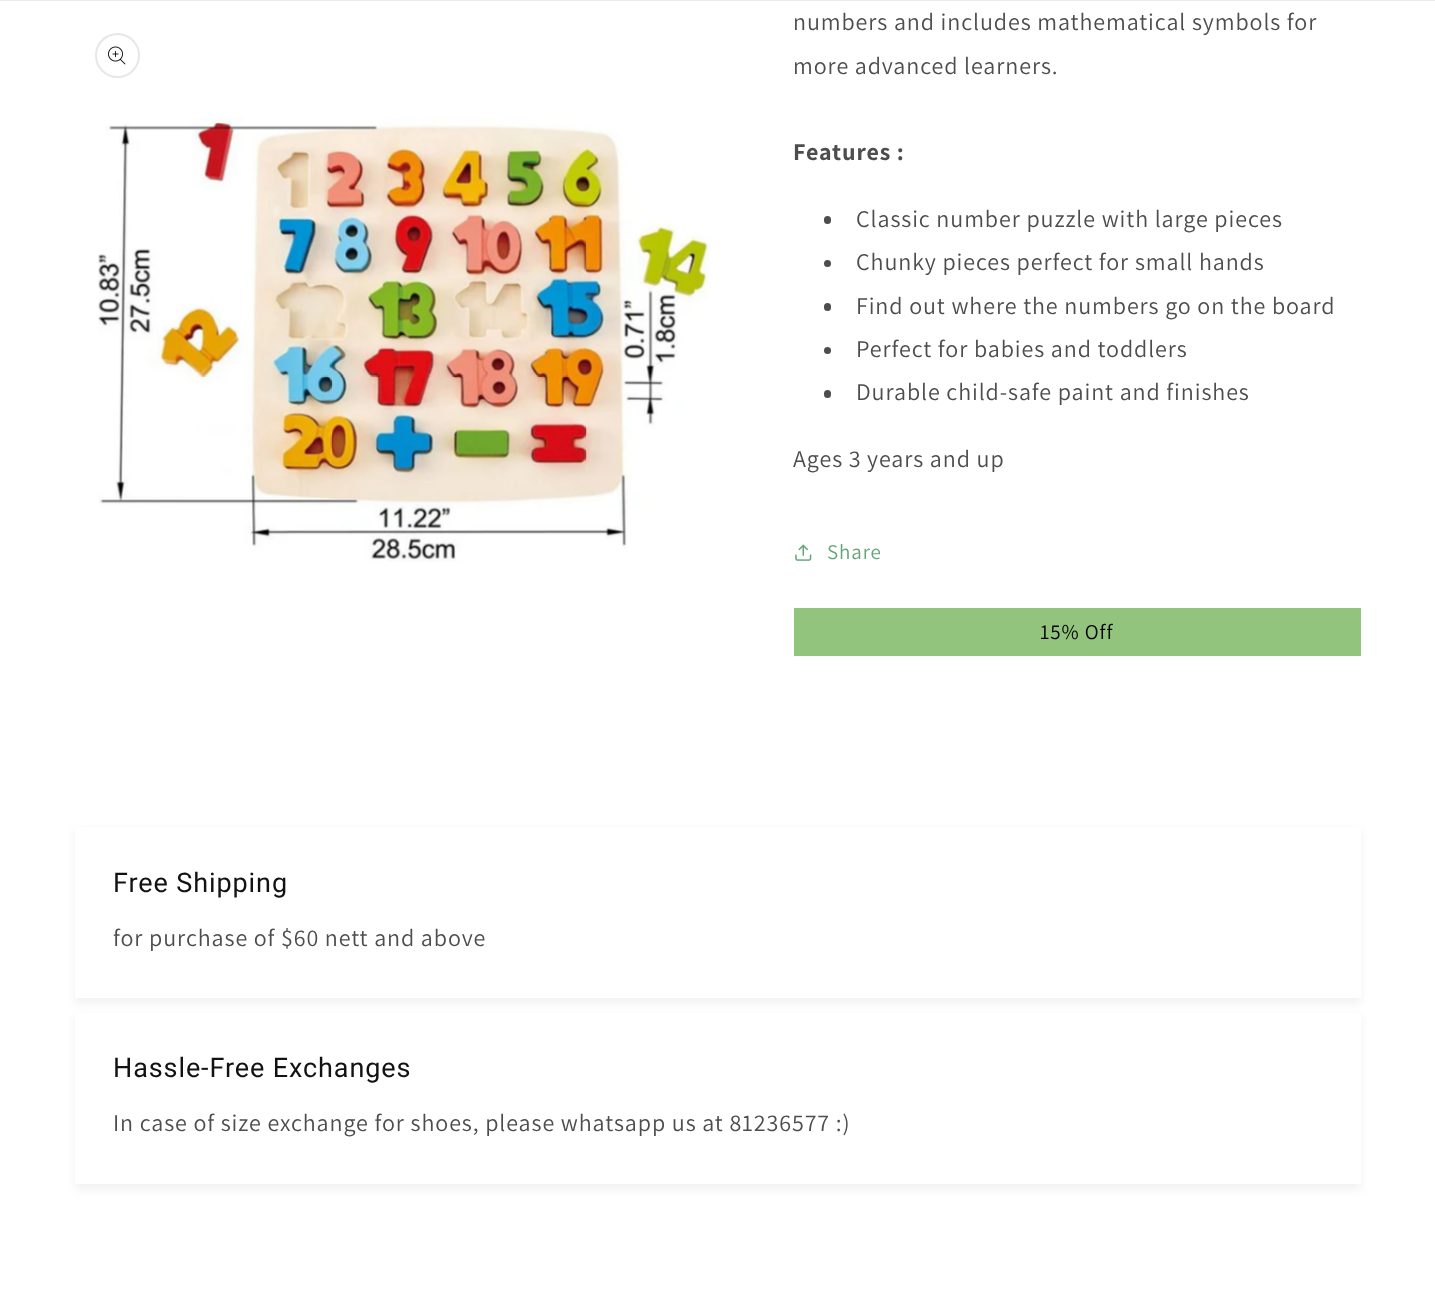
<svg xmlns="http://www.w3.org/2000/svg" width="1435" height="1300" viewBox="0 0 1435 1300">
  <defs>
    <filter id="blur1" x="-50%" y="-200%" width="200%" height="500%"><feGaussianBlur stdDeviation="4"/></filter>
  </defs>
  <rect width="100%" height="100%" fill="#ffffff"/>
  <rect x="0" y="0" width="1435" height="1" fill="#ececec"/>
  <circle cx="117.5" cy="55.5" r="21.5" fill="none" stroke="#e7e7e7" stroke-width="2"/>
  <image x="108" y="46" width="18" height="19" href="img1.png"/>
  <image x="98" y="117" width="613" height="445" href="img2.png"/>
  <text x="793" y="30" font-family="Assistant" font-size="24" letter-spacing="0.9" fill="#4d4d4d">numbers and includes mathematical symbols for</text>
  <text x="793" y="74" font-family="Assistant" font-size="24" letter-spacing="0.9" fill="#4d4d4d">more advanced learners.</text>
  <text x="793" y="160" font-family="Assistant" font-size="24" font-weight="bold" letter-spacing="0.9" fill="#4d4d4d">Features :</text>
  <rect x="824" y="216" width="7" height="8" rx="3.5" fill="#4d4d4d"/>
  <text x="856" y="227" font-family="Assistant" font-size="24" letter-spacing="0.9" fill="#4d4d4d">Classic number puzzle with large pieces</text>
  <circle cx="827.5" cy="263.5" r="3.5" fill="#4d4d4d"/>
  <text x="856" y="270" font-family="Assistant" font-size="24" letter-spacing="0.9" fill="#4d4d4d">Chunky pieces perfect for small hands</text>
  <rect x="824" y="303" width="7" height="8" rx="3.5" fill="#4d4d4d"/>
  <text x="856" y="314" font-family="Assistant" font-size="24" letter-spacing="0.9" fill="#4d4d4d">Find out where the numbers go on the board</text>
  <circle cx="827.5" cy="350.5" r="3.5" fill="#4d4d4d"/>
  <text x="856" y="357" font-family="Assistant" font-size="24" letter-spacing="0.9" fill="#4d4d4d">Perfect for babies and toddlers</text>
  <rect x="824" y="390" width="7" height="8" rx="3.5" fill="#4d4d4d"/>
  <text x="856" y="400" font-family="Assistant" font-size="24" letter-spacing="0.9" fill="#4d4d4d">Durable child-safe paint and finishes</text>
  <text x="793" y="467" font-family="Assistant" font-size="24" letter-spacing="0.9" fill="#4d4d4d">Ages 3 years and up</text>
  <image x="795" y="544" width="17" height="17" href="img3.png"/>
  <text x="827" y="559" font-family="Assistant" font-size="21" letter-spacing="0.9" fill="#62a679">Share</text>
  <rect x="794" y="608" width="567" height="48" fill="#93c47d"/>
  <text x="1040" y="639" font-family="Assistant" font-size="21" letter-spacing="0.9" fill="#000000">15% Off</text>
  <rect x="75" y="830" width="1286" height="174" fill="#121212" fill-opacity="0.05" filter="url(#blur1)"/>
  <rect x="75" y="827" width="1286" height="171" fill="#ffffff"/>
  <text x="113" y="892" font-family="Roboto" font-size="27" letter-spacing="0.9" fill="#121212">Free Shipping</text>
  <text x="113" y="946" font-family="Assistant" font-size="24" letter-spacing="0.9" fill="#4d4d4d">for purchase of $60 nett and above</text>
  <rect x="75" y="1016" width="1286" height="174" fill="#121212" fill-opacity="0.05" filter="url(#blur1)"/>
  <rect x="75" y="1013" width="1286" height="171" fill="#ffffff"/>
  <text x="113" y="1077" font-family="Roboto" font-size="27" letter-spacing="0.9" fill="#121212">Hassle-Free Exchanges</text>
  <text x="113" y="1131" font-family="Assistant" font-size="24" letter-spacing="0.9" fill="#4d4d4d">In case of size exchange for shoes, please whatsapp us at 81236577 :)</text>
</svg>
